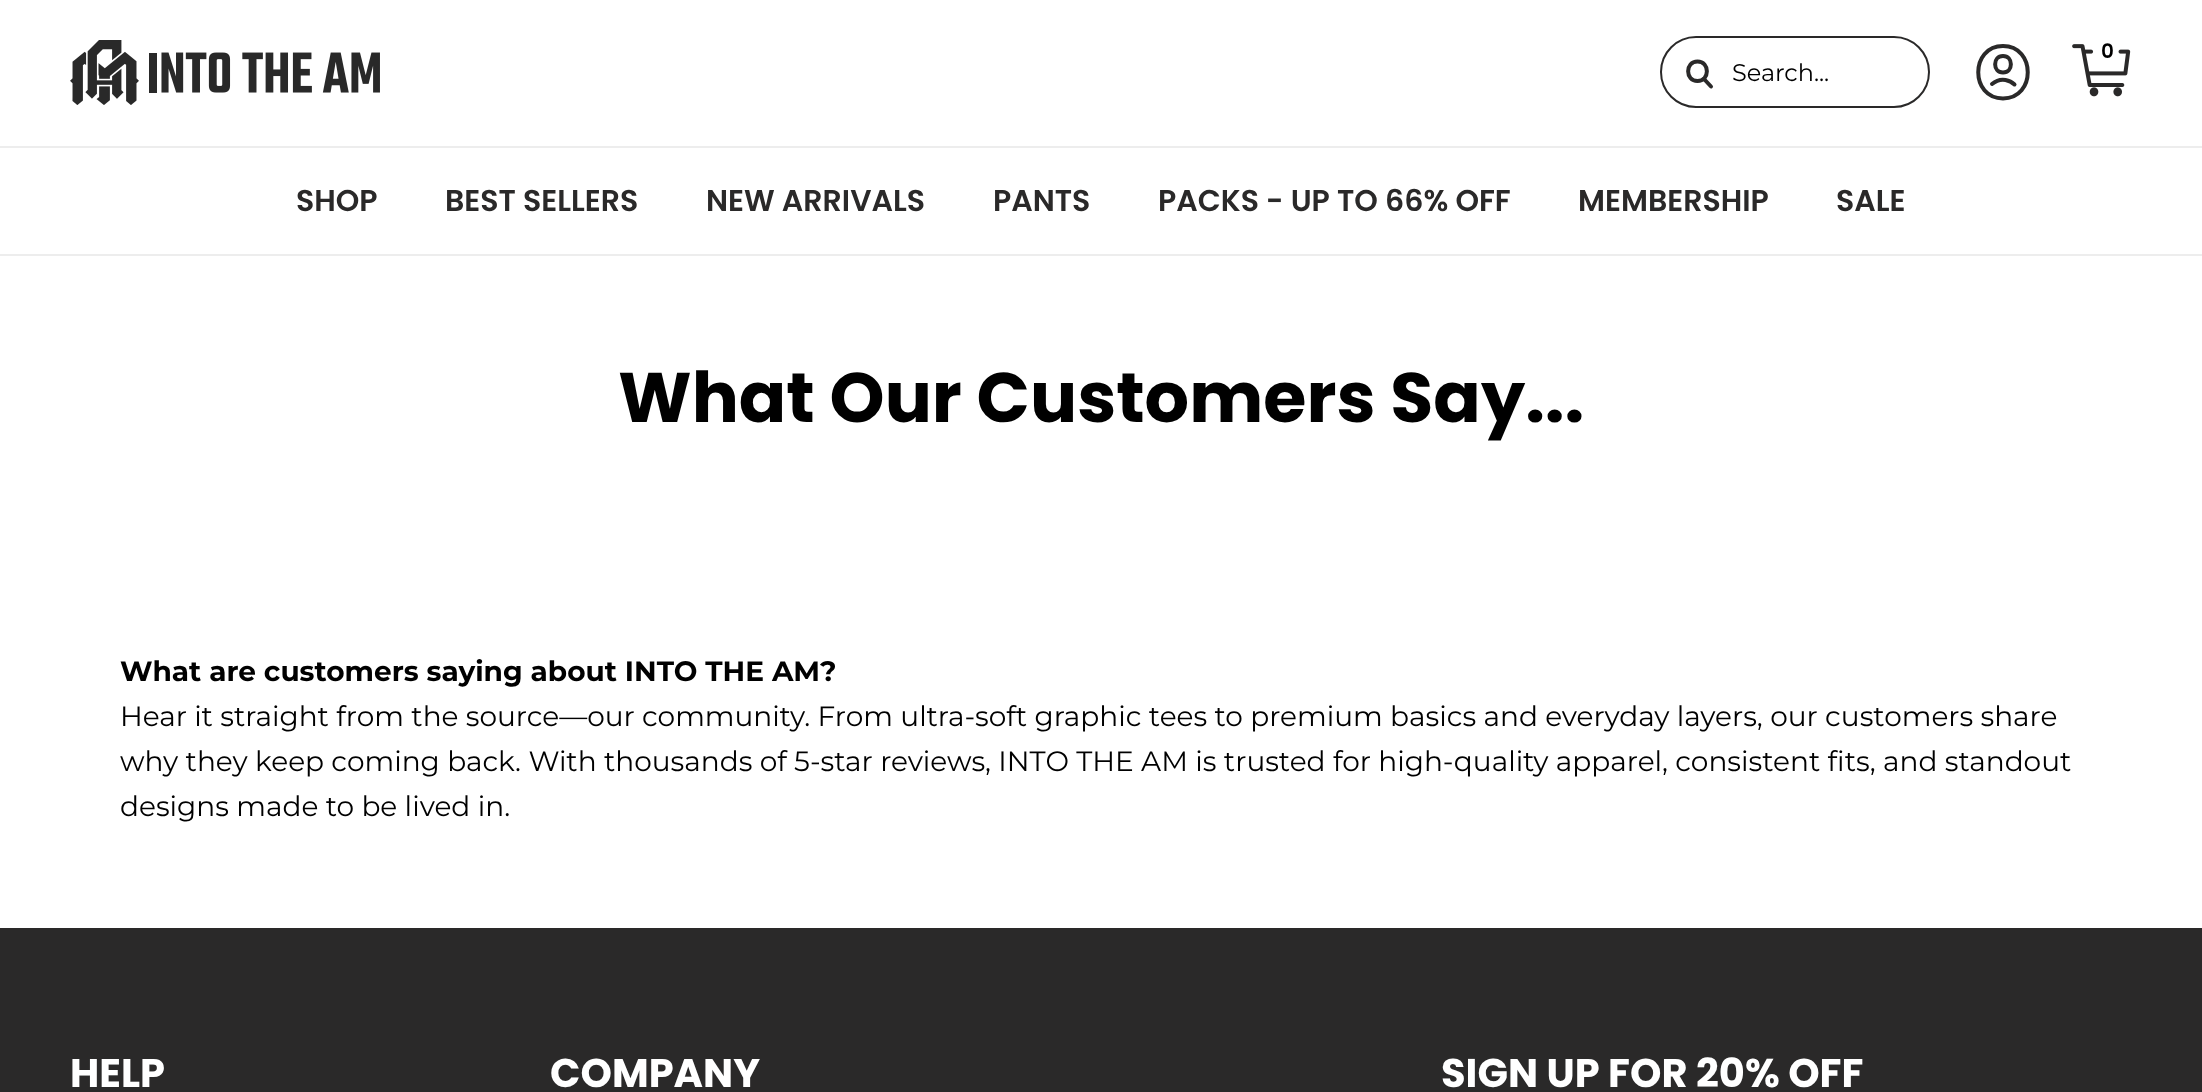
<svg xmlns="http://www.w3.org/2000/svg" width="2202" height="1092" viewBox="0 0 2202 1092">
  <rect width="100%" height="100%" fill="#ffffff"/>
  <rect x="0" y="146" width="2202" height="2" fill="#ededed"/>
  <image x="70" y="40" width="310" height="65" href="img1.png"/>
  <rect x="1661" y="37" width="268" height="70" rx="35" fill="none" stroke="#2a2929" stroke-width="2"/>
  <path d="M1704 79L1711 86.5" fill="none" stroke="#2a2929" stroke-width="4" stroke-linecap="round"/>
  <path d="M1697.5 61.5C1710 61.5 1710 81 1697.5 81C1685 81 1685 61.5 1697.5 61.5Z" fill="none" stroke="#2a2929" stroke-width="4"/>
  <text x="1732" y="81" font-family="Montserrat" font-size="24" fill="#000000">Search...</text>
  <path d="M2003 46C2036 46 2036 98.5 2003 98.5C1970 98.5 1970 46 2003 46ZM2003 56C2013.5 56 2013.5 72.5 2003 72.5C1992.5 72.5 1992.5 56 2003 56Z" fill="none" stroke="#2a2929" stroke-width="4"/>
  <path d="M2014.5 84.5C2011 81 2001.5 76 1992 84" fill="none" stroke="#2a2929" stroke-width="4" stroke-linecap="round" stroke-linejoin="round"/>
  <image x="2072" y="44" width="59" height="53" href="img2.png"/>
  <text x="2101" y="58" font-family="Poppins" font-size="20" font-weight="600" fill="#000000">0</text>
  <rect x="0" y="254" width="2202" height="2" fill="#ededed"/>
  <text x="296" y="211" font-family="Poppins" font-size="30" font-weight="600" fill="#2a2929">SHOP</text>
  <text x="445" y="211" font-family="Poppins" font-size="30" font-weight="600" fill="#2a2929">BEST SELLERS</text>
  <text x="706" y="211" font-family="Poppins" font-size="30" font-weight="600" fill="#2a2929">NEW ARRIVALS</text>
  <text x="993" y="211" font-family="Poppins" font-size="30" font-weight="600" fill="#2a2929">PANTS</text>
  <text x="1158" y="211" font-family="Poppins" font-size="30" font-weight="600" fill="#2a2929">PACKS - UP TO 66% OFF</text>
  <text x="1578" y="211" font-family="Poppins" font-size="30" font-weight="600" fill="#2a2929">MEMBERSHIP</text>
  <text x="1836" y="211" font-family="Poppins" font-size="30" font-weight="600" fill="#2a2929">SALE</text>
  <text x="618" y="422" font-family="Poppins" font-size="70" font-weight="bold" fill="#000000">What Our Customers Say...</text>
  <text x="120" y="681" font-family="Montserrat" font-size="28" font-weight="bold" fill="#000000">What are customers saying about INTO THE AM?</text>
  <text x="120" y="726" font-family="Montserrat" font-size="28" fill="#000000">Hear it straight from the source—our community. From ultra-soft graphic tees to premium basics and everyday layers, our customers share</text>
  <text x="120" y="771" font-family="Montserrat" font-size="28" fill="#000000">why they keep coming back. With thousands of 5-star reviews, INTO THE AM is trusted for high-quality apparel, consistent fits, and standout</text>
  <text x="120" y="816" font-family="Montserrat" font-size="28" fill="#000000">designs made to be lived in.</text>
  <rect x="0" y="928" width="2202" height="164" fill="#2a2929"/>
  <text x="70" y="1087" font-family="Poppins" font-size="40" font-weight="bold" fill="#ffffff">HELP</text>
  <text x="550" y="1087" font-family="Poppins" font-size="40" font-weight="bold" fill="#ffffff">COMPANY</text>
  <text x="1441" y="1087" font-family="Poppins" font-size="40" font-weight="bold" fill="#ffffff">SIGN UP FOR 20% OFF</text>
</svg>
